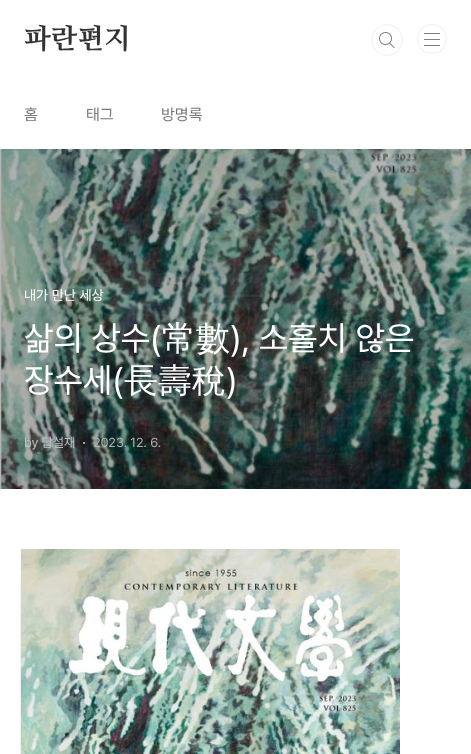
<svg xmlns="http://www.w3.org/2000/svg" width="471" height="754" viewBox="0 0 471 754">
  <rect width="100%" height="100%" fill="#ffffff"/>
  <text x="24" y="48" font-family="NanumMyeongjo" font-size="28" font-weight="800" fill="#333333">파란편지</text>
  <circle cx="387" cy="40" r="14.5" fill="none" stroke="#eeeeee"/>
  <circle cx="387" cy="40" r="16" fill="#ffffff"/>
  <image x="379" y="32" width="16" height="16" href="img1.png"/>
  <circle cx="387" cy="40" r="15.5" fill="none" stroke="#eeeeee"/>
  <circle cx="432" cy="39" r="14.5" fill="none" stroke="#eeeeee"/>
  <rect x="424" y="33" width="16" height="1" fill="#7f7f7f"/>
  <rect x="424" y="39" width="16" height="1" fill="#7f7f7f"/>
  <rect x="424" y="45" width="16" height="1" fill="#7f7f7f"/>
  <text x="24" y="120" font-family="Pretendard" font-size="16" fill="#777777">홈</text>
  <text x="86" y="120" font-family="Pretendard" font-size="16" fill="#777777">태그</text>
  <text x="161" y="120" font-family="Pretendard" font-size="16" fill="#777777">방명록</text>
  <image x="0" y="149" width="471" height="340" href="img2.png"/>
  <text x="24" y="300" font-family="Pretendard" font-size="14" fill="#ffffff">내가 만난 세상</text>
  <text x="24" y="350" font-family="Pretendard" font-size="34" fill="#ffffff">삶의 상수(</text>
  <text x="162" y="350" font-family="WenQuanYi Zen Hei" font-size="34" font-weight="500" fill="#ffffff">常數</text>
  <text x="230" y="350" font-family="Pretendard" font-size="34" fill="#ffffff">), 소홀치 않은</text>
  <text x="24" y="392" font-family="Pretendard" font-size="34" fill="#ffffff">장수세(</text>
  <text x="124" y="392" font-family="WenQuanYi Zen Hei" font-size="34" font-weight="500" fill="#ffffff">長壽稅</text>
  <text x="226" y="392" font-family="Pretendard" font-size="34" fill="#ffffff">)</text>
  <text x="24" y="447" font-family="Pretendard" font-size="13" fill="#bdc0c0">by 답설재</text>
  <rect x="83" y="442" width="2" height="2" fill="#ffffff" fill-opacity="0.6"/>
  <text x="93" y="447" font-family="Pretendard" font-size="13" fill="#acb3b1">2023. 12. 6.</text>
  <image x="20" y="549" width="380" height="205" href="img3.png"/>
</svg>
